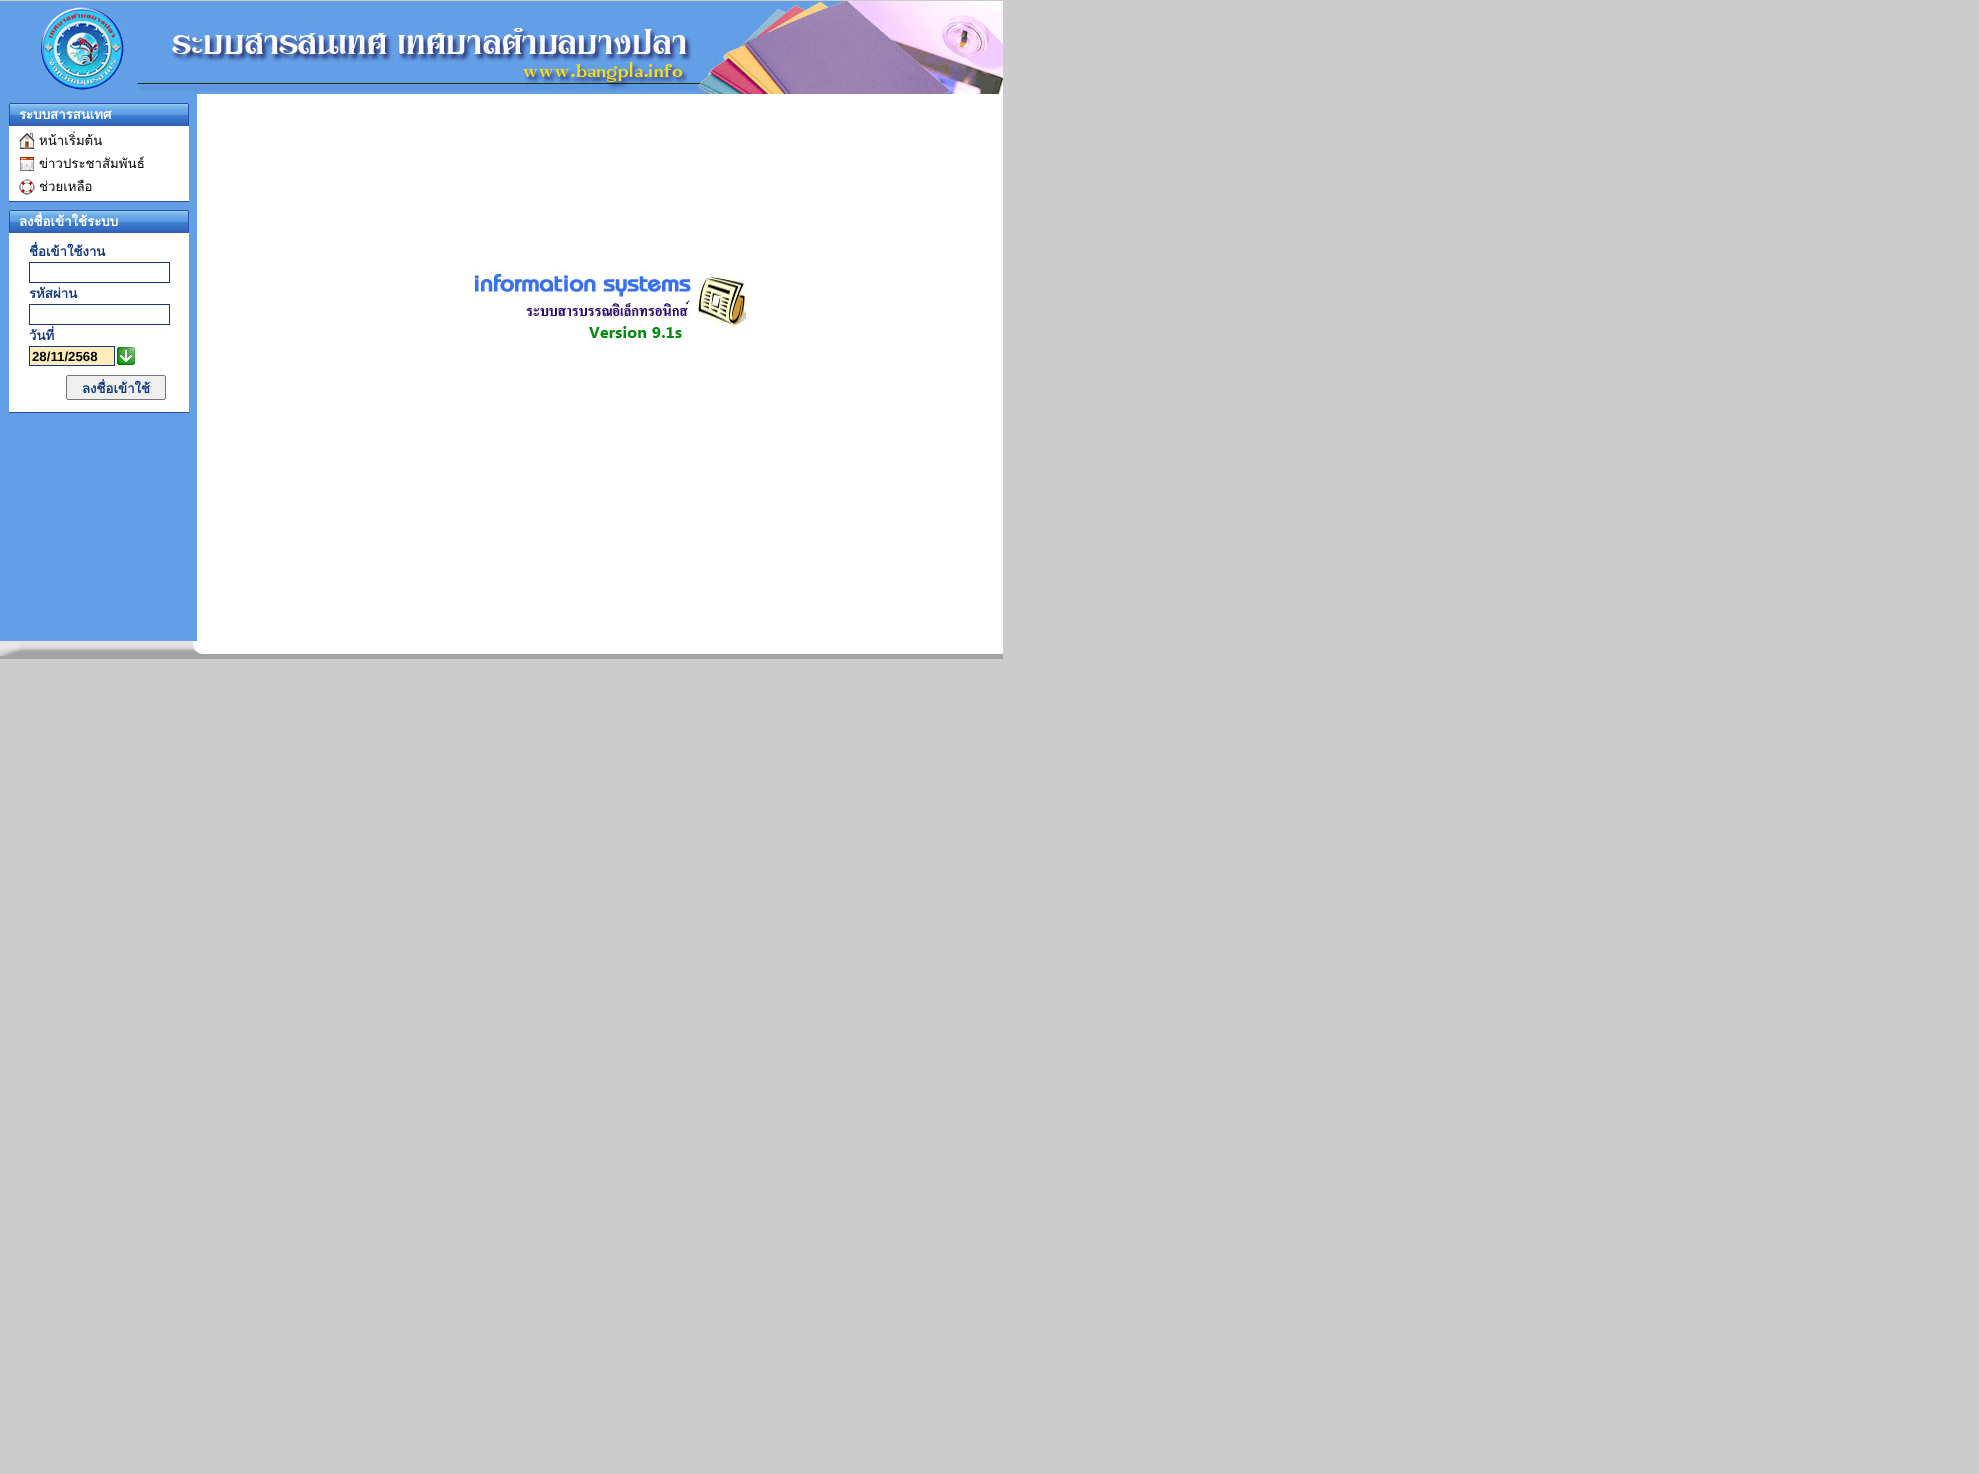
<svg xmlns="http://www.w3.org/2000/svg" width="1979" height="1474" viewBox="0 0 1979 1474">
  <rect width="100%" height="100%" fill="#cccccc"/>
  <image x="0" y="1" width="1003" height="93" href="img1.png"/>
  <rect x="0" y="94" width="197" height="547" fill="#629fe7"/>
  <rect x="197" y="94" width="806" height="1" fill="#ffffff"/>
  <image x="9" y="103" width="180" height="23" href="img2.png"/>
  <text x="19" y="119" font-family="Loma" font-size="13.25" font-weight="bold" fill="#ffffff">ระบบสารสนเทศ</text>
  <rect x="9" y="126" width="180" height="75" fill="#ffffff"/>
  <rect x="9" y="201" width="180" height="1" fill="#2a4dab"/>
  <image x="19" y="133" width="16" height="16" href="img3.png"/>
  <text x="39" y="145" font-family="Loma" font-size="13.25" fill="#000000">หน้าเริ่มต้น</text>
  <image x="20" y="157" width="14" height="14" href="img4.png"/>
  <text x="39" y="168" font-family="Loma" font-size="13.25" fill="#000000">ข่าวประชาสัมพันธ์</text>
  <image x="19" y="179" width="16" height="16" href="img5.png"/>
  <text x="39" y="191" font-family="Loma" font-size="13.25" fill="#000000">ช่วยเหลือ</text>
  <image x="9" y="210" width="180" height="23" href="img2.png"/>
  <text x="19" y="226" font-family="Loma" font-size="13.25" font-weight="bold" fill="#ffffff">ลงชื่อเข้าใช้ระบบ</text>
  <rect x="9" y="233" width="180" height="179" fill="#ffffff"/>
  <rect x="9" y="412" width="180" height="1" fill="#2a4dab"/>
  <text x="29" y="256" font-family="Loma" font-size="13.25" font-weight="bold" fill="#11387d">ชื่อเข้าใช้งาน</text>
  <rect x="29.5" y="262.5" width="140" height="20" fill="none" stroke="#11387d"/>
  <text x="29" y="298" font-family="Loma" font-size="13.25" font-weight="bold" fill="#11387d">รหัสผ่าน</text>
  <rect x="29.5" y="304.5" width="140" height="20" fill="none" stroke="#11387d"/>
  <text x="29" y="340" font-family="Loma" font-size="13.25" font-weight="bold" fill="#11387d">วันที่</text>
  <rect x="29.5" y="346.5" width="85" height="19" fill="#feedba" stroke="#11387d"/>
  <text x="32" y="361" font-family="Liberation Sans" font-size="13.25" font-weight="bold" fill="#000000">28/11/2568</text>
  <image x="117" y="347" width="18" height="18" href="img6.png"/>
  <rect x="66.5" y="375.5" width="99" height="24" rx="1.5" fill="#efefef" stroke="#767676"/>
  <text x="82" y="393" font-family="Loma" font-size="13.25" font-weight="bold" fill="#11387d">ลงชื่อเข้าใช้</text>
  <rect x="197" y="95" width="806" height="546" fill="#ffffff"/>
  <image x="474" y="270" width="272" height="72" href="img7.png"/>
  <image x="0" y="641" width="1003" height="15" href="img8.png"/>
  <rect x="0" y="656" width="1003" height="3" fill="#a3a3a3"/>
</svg>
